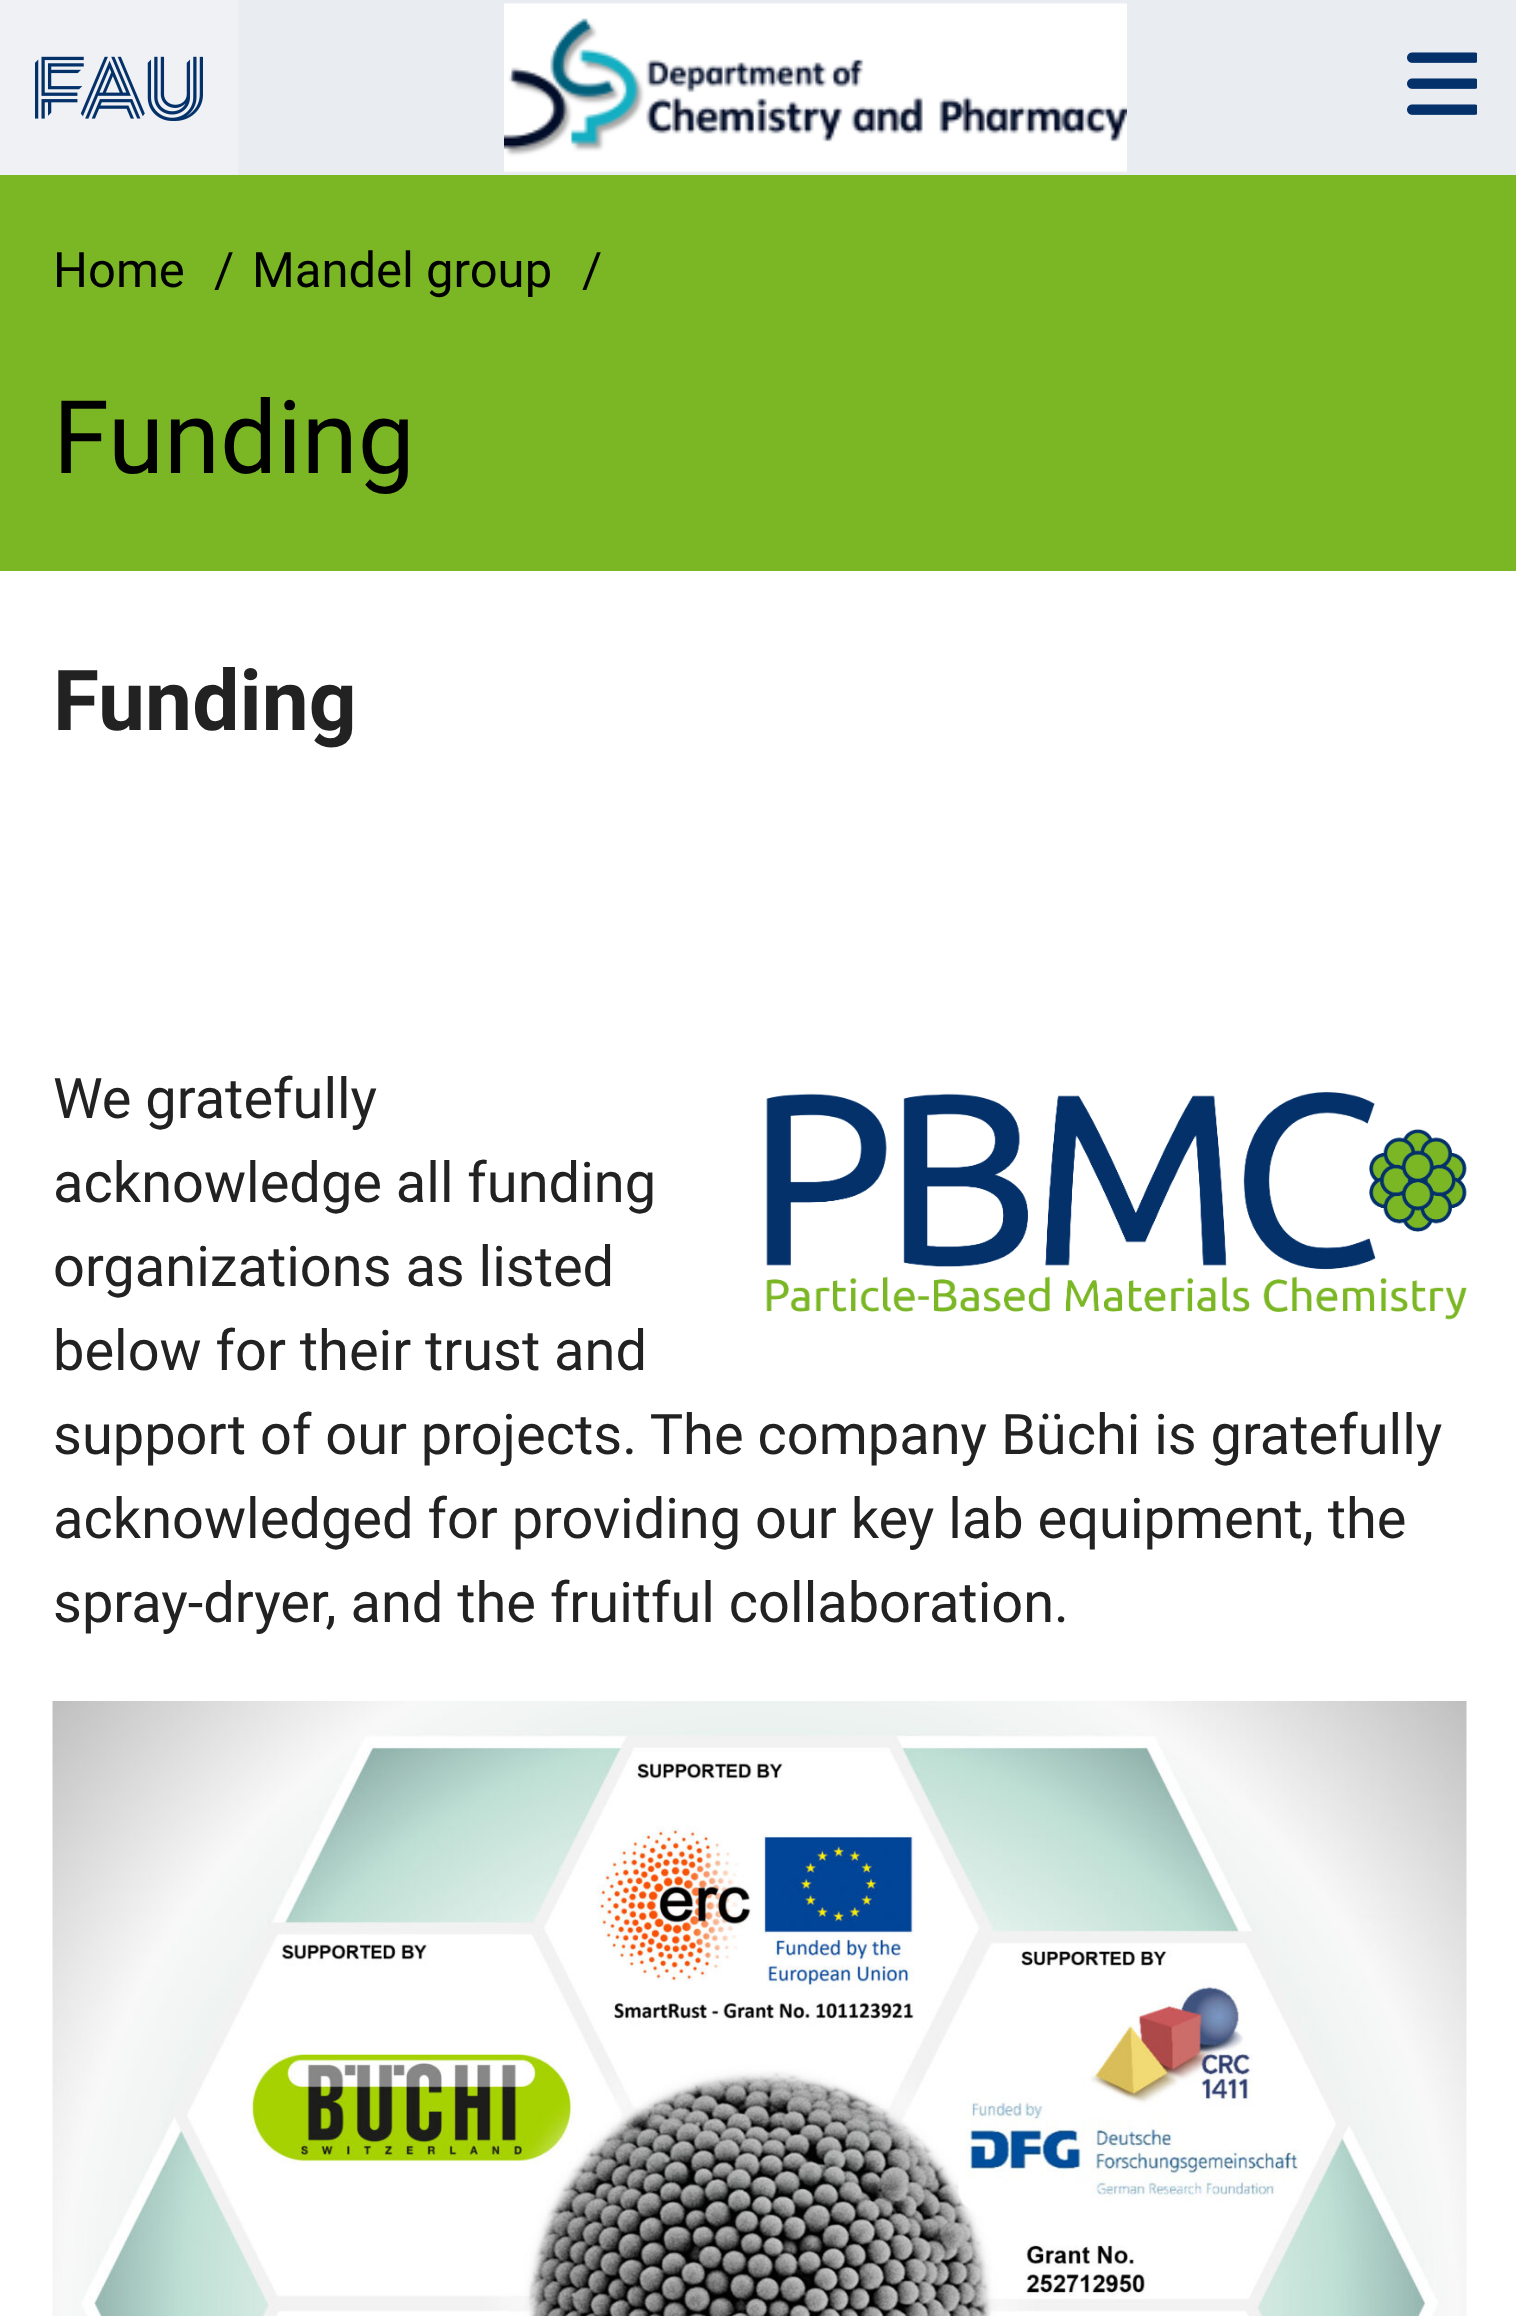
<svg xmlns="http://www.w3.org/2000/svg" width="1516" height="2316" viewBox="0 0 1516 2316">
  <rect width="100%" height="100%" fill="#ffffff"/>
  <rect x="238" y="0" width="1278" height="175" fill="#e9edf2"/>
  <rect x="0" y="0" width="238" height="175" fill="#eff1f4"/>
  <image x="35" y="56" width="168" height="65" href="img1.png"/>
  <image x="504" y="3" width="623" height="169" href="img2.png"/>
  <image x="1407" y="52" width="70" height="63" href="img3.png"/>
  <rect x="0" y="175" width="1516" height="396" fill="#7bb725"/>
  <text x="53" y="287" font-family="Roboto" font-size="49" fill="#000000">Home</text>
  <text x="214" y="287" font-family="Roboto" font-size="49" fill="#000000">/</text>
  <text x="252" y="287" font-family="Roboto" font-size="49" fill="#000000">Mandel group</text>
  <text x="582" y="287" font-family="Roboto" font-size="49" fill="#000000">/</text>
  <text x="53" y="473" font-family="Roboto" font-size="101.5" fill="#000000">Funding</text>
  <text x="53" y="730" font-family="Roboto" font-size="84" font-weight="bold" fill="#222222">Funding</text>
  <text x="53" y="1118" font-family="Roboto" font-size="56" fill="#222222">We gratefully</text>
  <text x="53" y="1202" font-family="Roboto" font-size="56" fill="#222222">acknowledge all funding</text>
  <text x="53" y="1286" font-family="Roboto" font-size="56" fill="#222222">organizations as listed</text>
  <text x="53" y="1370" font-family="Roboto" font-size="56" fill="#222222">below for their trust and</text>
  <text x="53" y="1454" font-family="Roboto" font-size="56" fill="#222222">support of our projects. The company Büchi is gratefully</text>
  <text x="53" y="1538" font-family="Roboto" font-size="56" fill="#222222">acknowledged for providing our key lab equipment, the</text>
  <text x="53" y="1622" font-family="Roboto" font-size="56" fill="#222222">spray-dryer, and the fruitful collaboration.</text>
  <image x="766" y="1092" width="701" height="228" href="img4.png"/>
  <image x="52" y="1701" width="1415" height="615" href="img5.png"/>
</svg>
